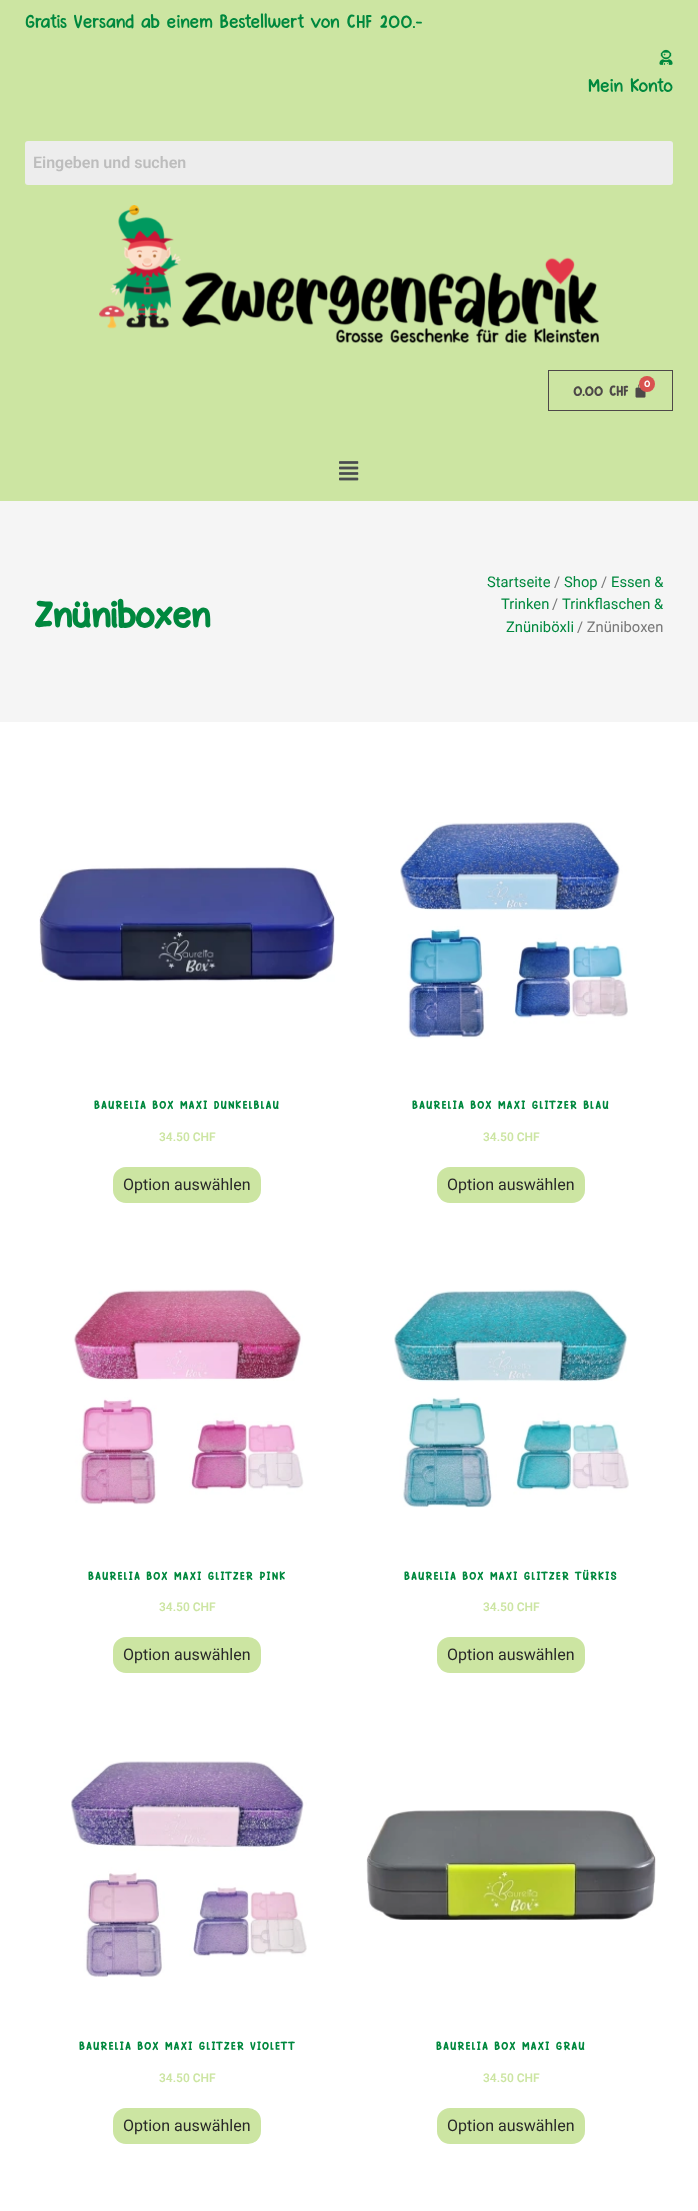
<svg xmlns="http://www.w3.org/2000/svg" width="698" height="2211" viewBox="0 0 698 2211">
  <rect width="100%" height="100%" fill="#ffffff"/>
  <rect x="0" y="0" width="698" height="501" fill="#cce5a2"/>
  <text x="25" y="28" font-family="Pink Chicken" font-size="20" fill="#00883e">Gratis Versand ab einem Bestellwert von CHF 200.-</text>
  <image x="659" y="49" width="14" height="16" href="img1.png"/>
  <text x="588" y="92" font-family="Pink Chicken" font-size="20" fill="#00883e">Mein Konto</text>
  <rect x="25" y="141" width="648" height="44" rx="3" fill="#ededed"/>
  <text x="33" y="168" font-family="Roboto" font-size="16" font-weight="600" fill="#bdbdbd">Eingeben und suchen</text>
  <image x="99" y="205" width="500" height="138" href="img2.png"/>
  <rect x="548.5" y="370.5" width="124" height="40" fill="none" stroke="#4d4848"/>
  <image x="635" y="384" width="11" height="14" href="img3.png"/>
  <circle cx="647" cy="384" r="8" fill="#d9534f"/>
  <text x="644" y="387" font-family="Pink Chicken" font-size="10" font-weight="bold" fill="#ffffff">0</text>
  <text x="573" y="396" font-family="Pink Chicken" font-size="15" font-weight="bold" fill="#4d4848">0.00</text>
  <text x="609" y="396" font-family="Pink Chicken" font-size="15" font-weight="bold" fill="#4d4848">CHF</text>
  <image x="339" y="461" width="20" height="20" href="img4.png"/>
  <rect x="0" y="501" width="698" height="221" fill="#f5f5f5"/>
  <text x="35" y="628" font-family="Pink Chicken" font-size="40" font-weight="bold" fill="#00883e">Znüniboxen</text>
  <text x="487" y="587" font-family="Roboto" font-size="14.75" fill="#00883e">Startseite</text>
  <text x="554" y="587" font-family="Roboto" font-size="14.75" fill="#777777">/</text>
  <text x="564" y="587" font-family="Roboto" font-size="14.75" fill="#00883e">Shop</text>
  <text x="601" y="587" font-family="Roboto" font-size="14.75" fill="#777777">/</text>
  <text x="611" y="587" font-family="Roboto" font-size="14.75" fill="#00883e">Essen &amp;</text>
  <text x="501" y="609" font-family="Roboto" font-size="14.75" fill="#00883e">Trinken</text>
  <text x="552" y="609" font-family="Roboto" font-size="14.75" fill="#777777">/</text>
  <text x="562" y="609" font-family="Roboto" font-size="14.75" fill="#00883e">Trinkflaschen &amp;</text>
  <text x="506" y="632" font-family="Roboto" font-size="14.75" fill="#00883e">Znüniböxli</text>
  <text x="577" y="632" font-family="Roboto" font-size="14.75" fill="#777777">/ Znüniboxen</text>
  <image x="39" y="865" width="296" height="117" href="img5.png"/>
  <text x="94" y="1109" font-family="Pink Chicken" font-size="12" font-weight="bold" letter-spacing="1.2" fill="#00883e">BAURELIA BOX MAXI DUNKELBLAU</text>
  <text x="159" y="1141" font-family="Heebo" font-size="12" font-weight="600" fill="#cce5a2">34.50 CHF</text>
  <rect x="113" y="1167" width="148" height="36" rx="13" fill="#cce5a2"/>
  <text x="123" y="1190" font-family="Roboto" font-size="16" fill="#292929">Option auswählen</text>
  <image x="400" y="822" width="228" height="217" href="img6.png"/>
  <text x="412" y="1109" font-family="Pink Chicken" font-size="12" font-weight="bold" letter-spacing="1.2" fill="#00883e">BAURELIA BOX MAXI GLITZER BLAU</text>
  <text x="483" y="1141" font-family="Heebo" font-size="12" font-weight="600" fill="#cce5a2">34.50 CHF</text>
  <rect x="437" y="1167" width="148" height="36" rx="13" fill="#cce5a2"/>
  <text x="447" y="1190" font-family="Roboto" font-size="16" fill="#292929">Option auswählen</text>
  <image x="73" y="1289" width="231" height="216" href="img7.png"/>
  <text x="88" y="1580" font-family="Pink Chicken" font-size="12" font-weight="bold" letter-spacing="1.2" fill="#00883e">BAURELIA BOX MAXI GLITZER PINK</text>
  <text x="159" y="1611" font-family="Heebo" font-size="12" font-weight="600" fill="#cce5a2">34.50 CHF</text>
  <rect x="113" y="1637" width="148" height="36" rx="13" fill="#cce5a2"/>
  <text x="123" y="1660" font-family="Roboto" font-size="16" fill="#292929">Option auswählen</text>
  <image x="394" y="1289" width="235" height="219" href="img8.png"/>
  <text x="404" y="1580" font-family="Pink Chicken" font-size="12" font-weight="bold" letter-spacing="1.2" fill="#00883e">BAURELIA BOX MAXI GLITZER TÜRKIS</text>
  <text x="483" y="1611" font-family="Heebo" font-size="12" font-weight="600" fill="#cce5a2">34.50 CHF</text>
  <rect x="437" y="1637" width="148" height="36" rx="13" fill="#cce5a2"/>
  <text x="447" y="1660" font-family="Roboto" font-size="16" fill="#292929">Option auswählen</text>
  <image x="71" y="1761" width="236" height="216" href="img9.png"/>
  <text x="79" y="2050" font-family="Pink Chicken" font-size="12" font-weight="bold" letter-spacing="1.2" fill="#00883e">BAURELIA BOX MAXI GLITZER VIOLETT</text>
  <text x="159" y="2082" font-family="Heebo" font-size="12" font-weight="600" fill="#cce5a2">34.50 CHF</text>
  <rect x="113" y="2108" width="148" height="36" rx="13" fill="#cce5a2"/>
  <text x="123" y="2131" font-family="Roboto" font-size="16" fill="#292929">Option auswählen</text>
  <image x="366" y="1810" width="290" height="110" href="img10.png"/>
  <text x="436" y="2050" font-family="Pink Chicken" font-size="12" font-weight="bold" letter-spacing="1.2" fill="#00883e">BAURELIA BOX MAXI GRAU</text>
  <text x="483" y="2082" font-family="Heebo" font-size="12" font-weight="600" fill="#cce5a2">34.50 CHF</text>
  <rect x="437" y="2108" width="148" height="36" rx="13" fill="#cce5a2"/>
  <text x="447" y="2131" font-family="Roboto" font-size="16" fill="#292929">Option auswählen</text>
</svg>
